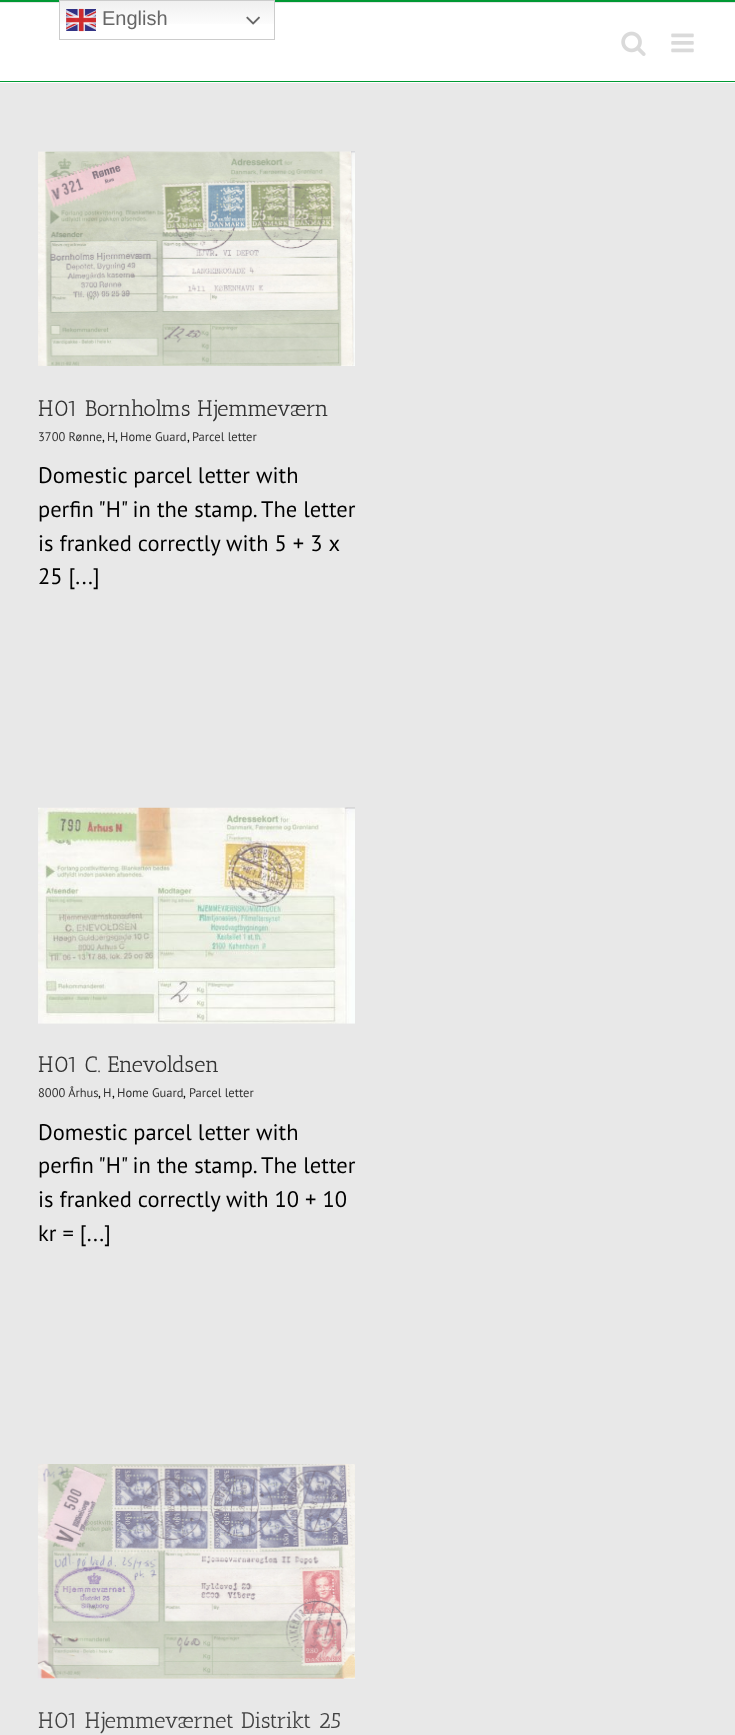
<svg xmlns="http://www.w3.org/2000/svg" width="735" height="1735" viewBox="0 0 735 1735">
  <defs>
    <linearGradient id="g1" gradientUnits="userSpaceOnUse" x1="167" y1="0" x2="167" y2="40"><stop offset="0" stop-color="#efefef"/><stop offset="0.7" stop-color="#ffffff"/></linearGradient>
  </defs>
  <rect width="100%" height="100%" fill="#e8e8e8"/>
  <rect x="0" y="2" width="735" height="1" fill="#e5e5e5"/>
  <rect x="0" y="0" width="735" height="2" fill="#009933"/>
  <rect x="0" y="3" width="735" height="80" fill="#ffffff"/>
  <rect x="60" y="1" width="214" height="23" fill="url(#g1)"/>
  <rect x="59.5" y="0.5" width="215" height="39" fill="none" stroke="#cccccc"/>
  <image x="66" y="8" width="30" height="24" href="img1.png"/>
  <text x="102" y="25" font-family="Liberation Sans" font-size="20" fill="#666666">English</text>
  <image x="246" y="16" width="14" height="9" href="img2.png"/>
  <rect x="0" y="81" width="735" height="1" fill="#009933"/>
  <image x="621" y="31" width="25" height="25" href="img3.png"/>
  <image x="671" y="33" width="23" height="20" href="img4.png"/>
  <image x="38" y="151" width="317" height="215" href="img5.png"/>
  <text x="38" y="416" font-family="Antic Slab" font-size="22.5" fill="#333333">H01 Bornholms Hjemmeværn</text>
  <text x="38" y="441" font-family="PT Sans" font-size="12.5" fill="#333333">3700 Rønne</text>
  <text x="102" y="441" font-family="PT Sans" font-size="12.5" fill="#000000">,</text>
  <text x="107" y="441" font-family="PT Sans" font-size="12.5" fill="#333333">H</text>
  <text x="115" y="441" font-family="PT Sans" font-size="12.5" fill="#000000">,</text>
  <text x="120" y="441" font-family="PT Sans" font-size="12.5" fill="#333333">Home Guard</text>
  <text x="187" y="441" font-family="PT Sans" font-size="12.5" fill="#000000">,</text>
  <text x="192" y="441" font-family="PT Sans" font-size="12.5" fill="#333333">Parcel letter</text>
  <text x="38" y="483" font-family="PT Sans" font-size="22.5" fill="#000000">Domestic parcel letter with</text>
  <text x="38" y="517" font-family="PT Sans" font-size="22.5" fill="#000000">perfin "H" in the stamp. The letter</text>
  <text x="38" y="551" font-family="PT Sans" font-size="22.5" fill="#000000">is franked correctly with 5 + 3 x</text>
  <text x="38" y="584" font-family="PT Sans" font-size="22.5" fill="#000000">25 [...]</text>
  <image x="38" y="807" width="317" height="217" href="img6.png"/>
  <text x="38" y="1072" font-family="Antic Slab" font-size="22.5" fill="#333333">H01 C. Enevoldsen</text>
  <text x="38" y="1097" font-family="PT Sans" font-size="12.5" fill="#333333">8000 Århus</text>
  <text x="98" y="1097" font-family="PT Sans" font-size="12.5" fill="#000000">,</text>
  <text x="103" y="1097" font-family="PT Sans" font-size="12.5" fill="#333333">H</text>
  <text x="112" y="1097" font-family="PT Sans" font-size="12.5" fill="#000000">,</text>
  <text x="117" y="1097" font-family="PT Sans" font-size="12.5" fill="#333333">Home Guard</text>
  <text x="183" y="1097" font-family="PT Sans" font-size="12.5" fill="#000000">,</text>
  <text x="189" y="1097" font-family="PT Sans" font-size="12.5" fill="#333333">Parcel letter</text>
  <text x="38" y="1140" font-family="PT Sans" font-size="22.5" fill="#000000">Domestic parcel letter with</text>
  <text x="38" y="1173" font-family="PT Sans" font-size="22.5" fill="#000000">perfin "H" in the stamp. The letter</text>
  <text x="38" y="1207" font-family="PT Sans" font-size="22.5" fill="#000000">is franked correctly with 10 + 10</text>
  <text x="38" y="1241" font-family="PT Sans" font-size="22.5" fill="#000000">kr = [...]</text>
  <image x="37" y="1464" width="318" height="215" href="img7.png"/>
  <text x="38" y="1728" font-family="Antic Slab" font-size="22.5" fill="#424242">H01 Hjemmeværnet Distrikt 25</text>
</svg>
